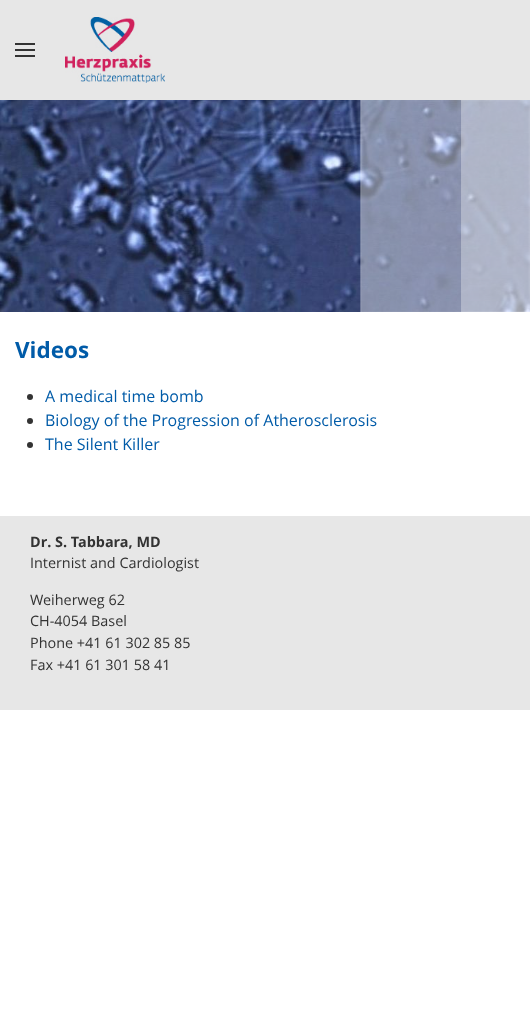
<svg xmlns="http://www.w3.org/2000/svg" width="530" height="1029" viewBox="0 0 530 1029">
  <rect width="100%" height="100%" fill="#ffffff"/>
  <rect x="0" y="0" width="530" height="100" fill="#e7e7e7"/>
  <rect x="15" y="49" width="20" height="2" fill="#333333"/>
  <rect x="15" y="43" width="20" height="2" fill="#333333"/>
  <rect x="15" y="55" width="20" height="2" fill="#333333"/>
  <image x="65" y="17" width="100" height="66" href="img1.png"/>
  <image x="0" y="100" width="530" height="212" href="img2.png"/>
  <image x="360" y="100" width="170" height="212" href="img3.png"/>
  <text x="15" y="358" font-family="Open Sans" font-size="22.5" font-weight="bold" fill="#005ba8">Videos</text>
  <circle cx="30" cy="397" r="3" fill="#333333"/>
  <text x="45" y="402" font-family="Open Sans" font-size="16" fill="#005ba8">A medical time bomb</text>
  <circle cx="30" cy="421" r="3" fill="#333333"/>
  <text x="45" y="426" font-family="Open Sans" font-size="16" fill="#005ba8">Biology of the Progression of Atherosclerosis</text>
  <circle cx="30" cy="445" r="3" fill="#333333"/>
  <text x="45" y="450" font-family="Open Sans" font-size="16" fill="#005ba8">The Silent Killer</text>
  <rect x="0" y="516" width="530" height="194" fill="#e7e7e7"/>
  <text x="30" y="547" font-family="Open Sans" font-size="14.4" font-weight="bold" fill="#333333">Dr. S. Tabbara, MD</text>
  <text x="30" y="568" font-family="Open Sans" font-size="14.4" fill="#333333">Internist and Cardiologist</text>
  <text x="30" y="605" font-family="Open Sans" font-size="14.4" fill="#333333">Weiherweg 62</text>
  <text x="30" y="626" font-family="Open Sans" font-size="14.4" fill="#333333">CH-4054 Basel</text>
  <text x="30" y="648" font-family="Open Sans" font-size="14.4" fill="#333333">Phone +41 61 302 85 85</text>
  <text x="30" y="670" font-family="Open Sans" font-size="14.4" fill="#333333">Fax +41 61 301 58 41</text>
</svg>
